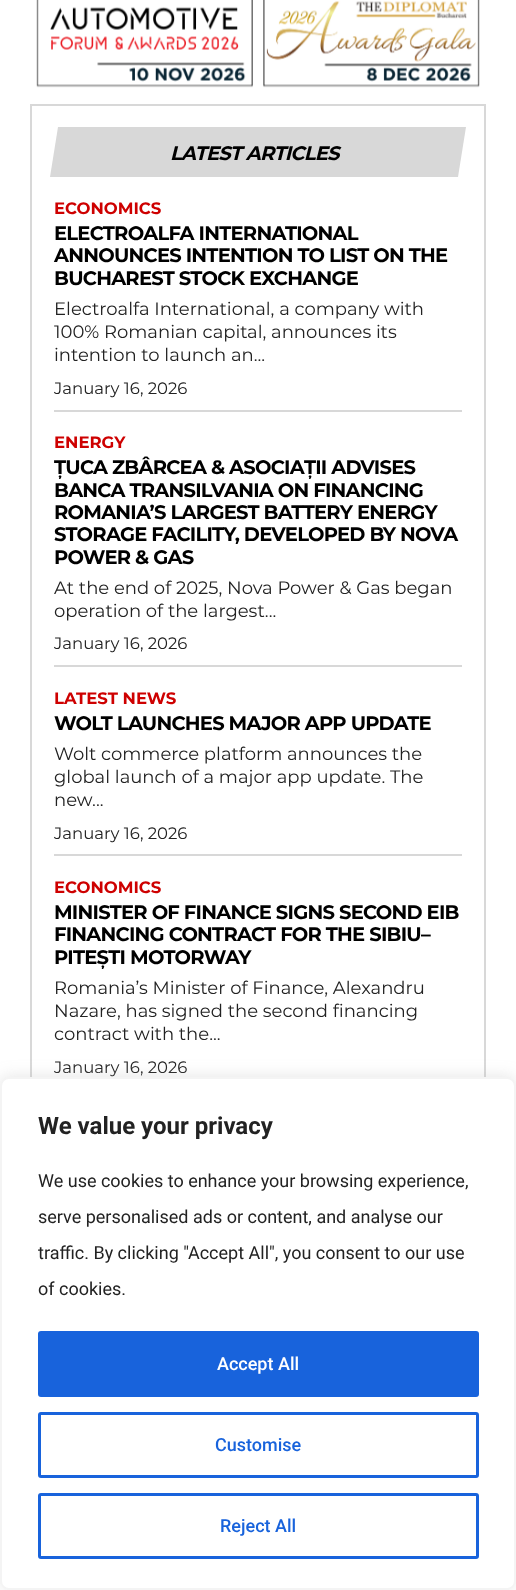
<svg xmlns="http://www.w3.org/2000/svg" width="516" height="1590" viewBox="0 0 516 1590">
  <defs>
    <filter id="blur1" x="-50%" y="-200%" width="200%" height="500%"><feGaussianBlur stdDeviation="7.5"/></filter>
  </defs>
  <rect width="100%" height="100%" fill="#ffffff"/>
  <image x="36" y="0" width="444" height="88" href="img1.png"/>
  <rect x="31" y="105" width="454" height="994" fill="none" stroke="#d8d8d8" stroke-width="2"/>
  <path d="M58 127H466L458 177H50Z" fill="#d8d8d8"/>
  <text x="170" y="160" font-family="Montserrat" font-size="19.5" font-weight="bold" font-style="italic" letter-spacing="-0.75" fill="#000000">LATEST ARTICLES</text>
  <text x="54" y="214" font-family="Montserrat" font-size="16.5" font-weight="bold" fill="#ce0000">ECONOMICS</text>
  <text x="54" y="240" font-family="Montserrat" font-size="19.5" font-weight="bold" letter-spacing="-0.75" fill="#000000">ELECTROALFA INTERNATIONAL</text>
  <text x="54" y="262" font-family="Montserrat" font-size="19.5" font-weight="bold" letter-spacing="-0.75" fill="#000000">ANNOUNCES INTENTION TO LIST ON THE</text>
  <text x="54" y="285" font-family="Montserrat" font-size="19.5" font-weight="bold" letter-spacing="-0.75" fill="#000000">BUCHAREST STOCK EXCHANGE</text>
  <text x="54" y="315" font-family="Montserrat" font-size="18" fill="#222222">Electroalfa International, a company with</text>
  <text x="54" y="338" font-family="Montserrat" font-size="18" fill="#222222">100% Romanian capital, announces its</text>
  <text x="54" y="361" font-family="Montserrat" font-size="18" fill="#222222">intention to launch an...</text>
  <text x="54" y="394" font-family="Montserrat" font-size="16.5" fill="#222222">January 16, 2026</text>
  <rect x="54" y="410" width="408" height="2" fill="#d8d8d8"/>
  <text x="54" y="448" font-family="Montserrat" font-size="16.5" font-weight="bold" fill="#ce0000">ENERGY</text>
  <text x="54" y="474" font-family="Montserrat" font-size="19.5" font-weight="bold" letter-spacing="-0.75" fill="#000000">ȚUCA ZBÂRCEA &amp; ASOCIAȚII ADVISES</text>
  <text x="54" y="497" font-family="Montserrat" font-size="19.5" font-weight="bold" letter-spacing="-0.75" fill="#000000">BANCA TRANSILVANIA ON FINANCING</text>
  <text x="54" y="519" font-family="Montserrat" font-size="19.5" font-weight="bold" letter-spacing="-0.75" fill="#000000">ROMANIA’S LARGEST BATTERY ENERGY</text>
  <text x="54" y="541" font-family="Montserrat" font-size="19.5" font-weight="bold" letter-spacing="-0.75" fill="#000000">STORAGE FACILITY, DEVELOPED BY NOVA</text>
  <text x="54" y="564" font-family="Montserrat" font-size="19.5" font-weight="bold" letter-spacing="-0.75" fill="#000000">POWER &amp; GAS</text>
  <text x="54" y="594" font-family="Montserrat" font-size="18" fill="#222222">At the end of 2025, Nova Power &amp; Gas began</text>
  <text x="54" y="617" font-family="Montserrat" font-size="18" fill="#222222">operation of the largest...</text>
  <text x="54" y="649" font-family="Montserrat" font-size="16.5" fill="#222222">January 16, 2026</text>
  <rect x="54" y="665" width="408" height="2" fill="#d8d8d8"/>
  <text x="54" y="704" font-family="Montserrat" font-size="16.5" font-weight="bold" fill="#ce0000">LATEST NEWS</text>
  <text x="54" y="730" font-family="Montserrat" font-size="19.5" font-weight="bold" letter-spacing="-0.75" fill="#000000">WOLT LAUNCHES MAJOR APP UPDATE</text>
  <text x="54" y="760" font-family="Montserrat" font-size="18" fill="#222222">Wolt commerce platform announces the</text>
  <text x="54" y="783" font-family="Montserrat" font-size="18" fill="#222222">global launch of a major app update. The</text>
  <text x="54" y="806" font-family="Montserrat" font-size="18" fill="#222222">new...</text>
  <text x="54" y="839" font-family="Montserrat" font-size="16.5" fill="#222222">January 16, 2026</text>
  <rect x="54" y="854" width="408" height="2" fill="#d8d8d8"/>
  <text x="54" y="893" font-family="Montserrat" font-size="16.5" font-weight="bold" fill="#ce0000">ECONOMICS</text>
  <text x="54" y="919" font-family="Montserrat" font-size="19.5" font-weight="bold" letter-spacing="-0.75" fill="#000000">MINISTER OF FINANCE SIGNS SECOND EIB</text>
  <text x="54" y="941" font-family="Montserrat" font-size="19.5" font-weight="bold" letter-spacing="-0.75" fill="#000000">FINANCING CONTRACT FOR THE SIBIU–</text>
  <text x="54" y="964" font-family="Montserrat" font-size="19.5" font-weight="bold" letter-spacing="-0.75" fill="#000000">PITEȘTI MOTORWAY</text>
  <text x="54" y="994" font-family="Montserrat" font-size="18" fill="#222222">Romania’s Minister of Finance, Alexandru</text>
  <text x="54" y="1017" font-family="Montserrat" font-size="18" fill="#222222">Nazare, has signed the second financing</text>
  <text x="54" y="1040" font-family="Montserrat" font-size="18" fill="#222222">contract with the...</text>
  <text x="54" y="1073" font-family="Montserrat" font-size="16.5" fill="#222222">January 16, 2026</text>
  <rect x="0" y="1076" width="516" height="513" rx="9" fill="#acabab" fill-opacity="0.3" filter="url(#blur1)"/>
  <rect x="1" y="1078" width="514" height="511" rx="8" fill="#ffffff" stroke="#f4f4f4" stroke-width="2"/>
  <text x="38" y="1134" font-family="Roboto" font-size="24" font-weight="bold" fill="#222222">We value your privacy</text>
  <text x="38" y="1187" font-family="Roboto" font-size="18" fill="#222222">We use cookies to enhance your browsing experience,</text>
  <text x="38" y="1223" font-family="Roboto" font-size="18" fill="#222222">serve personalised ads or content, and analyse our</text>
  <text x="38" y="1259" font-family="Roboto" font-size="18" fill="#222222">traffic. By clicking "Accept All", you consent to our use</text>
  <text x="38" y="1295" font-family="Roboto" font-size="18" fill="#222222">of cookies.</text>
  <rect x="39.5" y="1332.5" width="438" height="63" rx="1.5" fill="#1863dc" stroke="#1863dc" stroke-width="3"/>
  <text x="217" y="1370" font-family="Roboto" font-size="18" font-weight="500" fill="#ffffff">Accept All</text>
  <rect x="39.5" y="1413.5" width="438" height="63" rx="1.5" fill="none" stroke="#1863dc" stroke-width="3"/>
  <text x="215" y="1451" font-family="Roboto" font-size="18" font-weight="500" fill="#1863dc">Customise</text>
  <rect x="39.5" y="1494.5" width="438" height="63" rx="1.5" fill="none" stroke="#1863dc" stroke-width="3"/>
  <text x="220" y="1532" font-family="Roboto" font-size="18" font-weight="500" fill="#1863dc">Reject All</text>
</svg>
